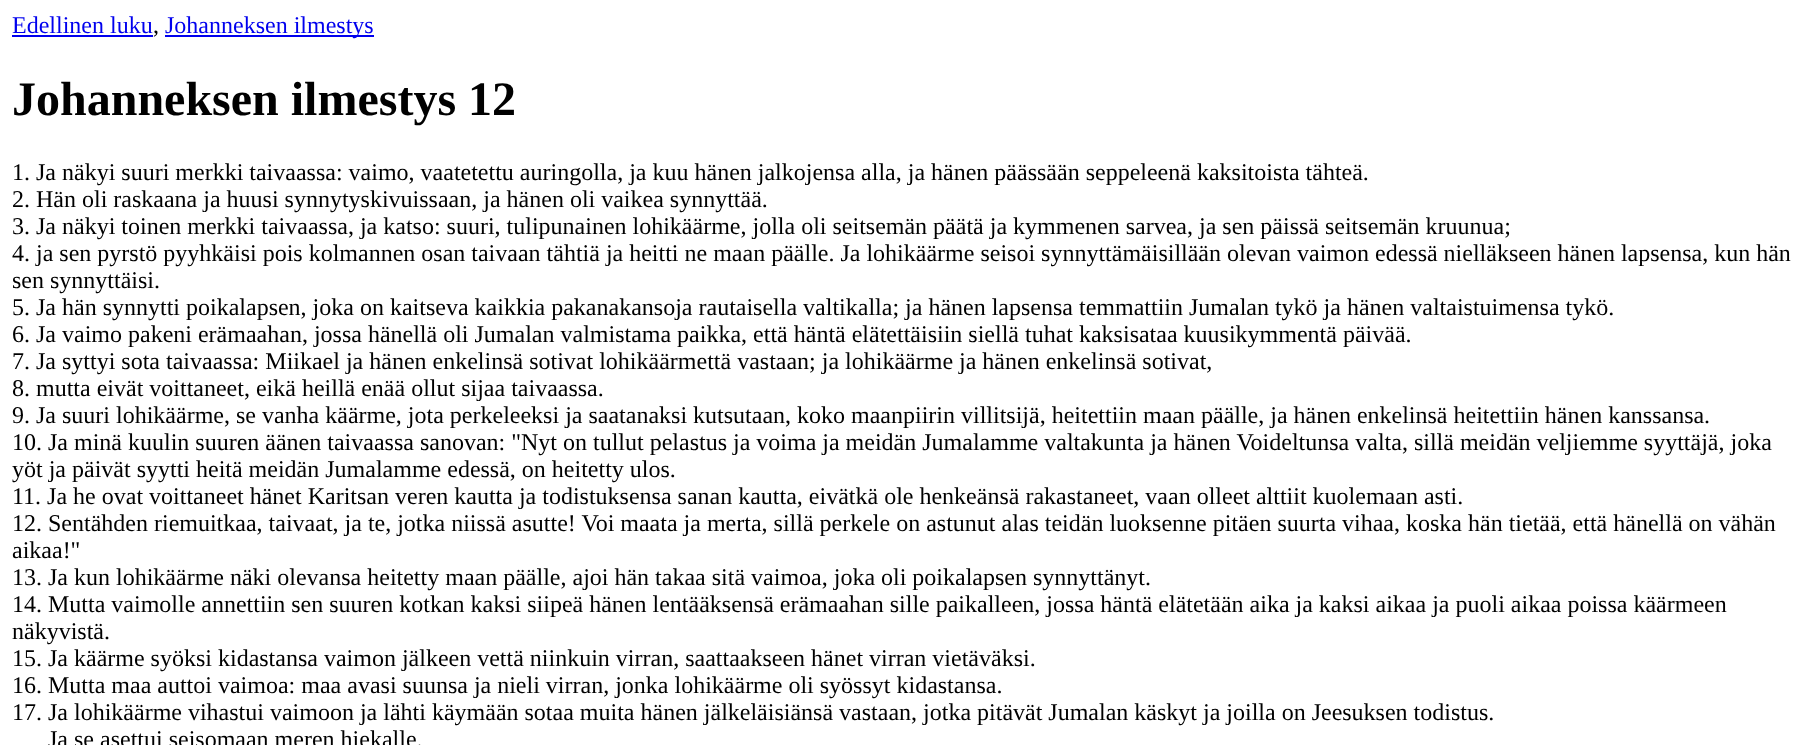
<svg xmlns="http://www.w3.org/2000/svg" width="1805" height="745" viewBox="0 0 1805 745">
  <rect width="100%" height="100%" fill="#ffffff"/>
  <text x="12" y="33" font-family="Liberation Serif" font-size="24" fill="#0000ee">Edellinen luku</text>
  <rect x="12" y="35" width="141" height="2" fill="#0000ee"/>
  <text x="153" y="33" font-family="Liberation Serif" font-size="24" fill="#000000">,</text>
  <rect x="165" y="35" width="209" height="2" fill="#0000ee"/>
  <text x="165" y="33" font-family="Liberation Serif" font-size="24" fill="#0000ee">Johanneksen ilmestys</text>
  <text x="12" y="115" font-family="Liberation Serif" font-size="48" font-weight="bold" fill="#000000">Johanneksen ilmestys 12</text>
  <text x="12" y="180" font-family="Liberation Serif" font-size="24" fill="#000000">1. Ja näkyi suuri merkki taivaassa: vaimo, vaatetettu auringolla, ja kuu hänen jalkojensa alla, ja hänen päässään seppeleenä kaksitoista tähteä.</text>
  <text x="12" y="207" font-family="Liberation Serif" font-size="24" fill="#000000">2. Hän oli raskaana ja huusi synnytyskivuissaan, ja hänen oli vaikea synnyttää.</text>
  <text x="12" y="234" font-family="Liberation Serif" font-size="24" fill="#000000">3. Ja näkyi toinen merkki taivaassa, ja katso: suuri, tulipunainen lohikäärme, jolla oli seitsemän päätä ja kymmenen sarvea, ja sen päissä seitsemän kruunua;</text>
  <text x="12" y="261" font-family="Liberation Serif" font-size="24" fill="#000000">4. ja sen pyrstö pyyhkäisi pois kolmannen osan taivaan tähtiä ja heitti ne maan päälle. Ja lohikäärme seisoi synnyttämäisillään olevan vaimon edessä nielläkseen hänen lapsensa, kun hän</text>
  <text x="12" y="288" font-family="Liberation Serif" font-size="24" fill="#000000">sen synnyttäisi.</text>
  <text x="12" y="315" font-family="Liberation Serif" font-size="24" fill="#000000">5. Ja hän synnytti poikalapsen, joka on kaitseva kaikkia pakanakansoja rautaisella valtikalla; ja hänen lapsensa temmattiin Jumalan tykö ja hänen valtaistuimensa tykö.</text>
  <text x="12" y="342" font-family="Liberation Serif" font-size="24" fill="#000000">6. Ja vaimo pakeni erämaahan, jossa hänellä oli Jumalan valmistama paikka, että häntä elätettäisiin siellä tuhat kaksisataa kuusikymmentä päivää.</text>
  <text x="12" y="369" font-family="Liberation Serif" font-size="24" fill="#000000">7. Ja syttyi sota taivaassa: Miikael ja hänen enkelinsä sotivat lohikäärmettä vastaan; ja lohikäärme ja hänen enkelinsä sotivat,</text>
  <text x="12" y="396" font-family="Liberation Serif" font-size="24" fill="#000000">8. mutta eivät voittaneet, eikä heillä enää ollut sijaa taivaassa.</text>
  <text x="12" y="423" font-family="Liberation Serif" font-size="24" fill="#000000">9. Ja suuri lohikäärme, se vanha käärme, jota perkeleeksi ja saatanaksi kutsutaan, koko maanpiirin villitsijä, heitettiin maan päälle, ja hänen enkelinsä heitettiin hänen kanssansa.</text>
  <text x="12" y="450" font-family="Liberation Serif" font-size="24" fill="#000000">10. Ja minä kuulin suuren äänen taivaassa sanovan: "Nyt on tullut pelastus ja voima ja meidän Jumalamme valtakunta ja hänen Voideltunsa valta, sillä meidän veljiemme syyttäjä, joka</text>
  <text x="12" y="477" font-family="Liberation Serif" font-size="24" fill="#000000">yöt ja päivät syytti heitä meidän Jumalamme edessä, on heitetty ulos.</text>
  <text x="12" y="504" font-family="Liberation Serif" font-size="24" fill="#000000">11. Ja he ovat voittaneet hänet Karitsan veren kautta ja todistuksensa sanan kautta, eivätkä ole henkeänsä rakastaneet, vaan olleet alttiit kuolemaan asti.</text>
  <text x="12" y="531" font-family="Liberation Serif" font-size="24" fill="#000000">12. Sentähden riemuitkaa, taivaat, ja te, jotka niissä asutte! Voi maata ja merta, sillä perkele on astunut alas teidän luoksenne pitäen suurta vihaa, koska hän tietää, että hänellä on vähän</text>
  <text x="12" y="558" font-family="Liberation Serif" font-size="24" fill="#000000">aikaa!"</text>
  <text x="12" y="585" font-family="Liberation Serif" font-size="24" fill="#000000">13. Ja kun lohikäärme näki olevansa heitetty maan päälle, ajoi hän takaa sitä vaimoa, joka oli poikalapsen synnyttänyt.</text>
  <text x="12" y="612" font-family="Liberation Serif" font-size="24" fill="#000000">14. Mutta vaimolle annettiin sen suuren kotkan kaksi siipeä hänen lentääksensä erämaahan sille paikalleen, jossa häntä elätetään aika ja kaksi aikaa ja puoli aikaa poissa käärmeen</text>
  <text x="12" y="639" font-family="Liberation Serif" font-size="24" fill="#000000">näkyvistä.</text>
  <text x="12" y="666" font-family="Liberation Serif" font-size="24" fill="#000000">15. Ja käärme syöksi kidastansa vaimon jälkeen vettä niinkuin virran, saattaakseen hänet virran vietäväksi.</text>
  <text x="12" y="693" font-family="Liberation Serif" font-size="24" fill="#000000">16. Mutta maa auttoi vaimoa: maa avasi suunsa ja nieli virran, jonka lohikäärme oli syössyt kidastansa.</text>
  <text x="12" y="720" font-family="Liberation Serif" font-size="24" fill="#000000">17. Ja lohikäärme vihastui vaimoon ja lähti käymään sotaa muita hänen jälkeläisiänsä vastaan, jotka pitävät Jumalan käskyt ja joilla on Jeesuksen todistus.</text>
  <text x="48" y="747" font-family="Liberation Serif" font-size="24" fill="#000000">Ja se asettui seisomaan meren hiekalle.</text>
</svg>
